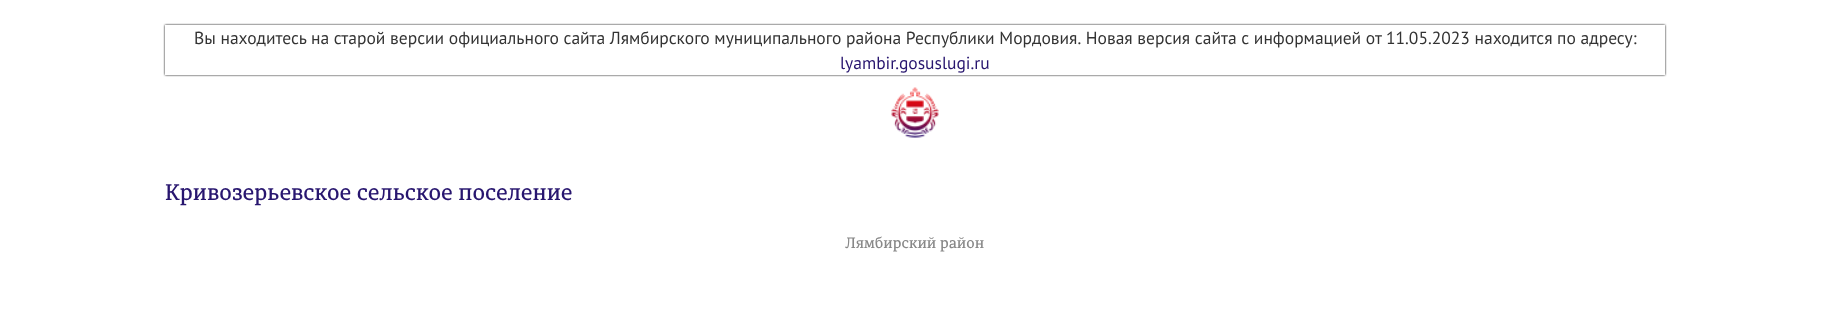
<svg xmlns="http://www.w3.org/2000/svg" width="1829" height="312" viewBox="0 0 1829 312">
  <defs>
    <clipPath id="clip1"><path d="M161 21H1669V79H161ZM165 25H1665V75H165Z" clip-rule="evenodd"/></clipPath>
    <filter id="blur1" x="-50%" y="-200%" width="200%" height="500%"><feGaussianBlur stdDeviation="1"/></filter>
  </defs>
  <rect width="100%" height="100%" fill="#ffffff"/>
  <g clip-path="url(#clip1)">
    <rect x="165" y="25" width="1500" height="50" fill="#000000" filter="url(#blur1)"/>
  </g>
  <text x="194" y="44" font-family="PT Sans" font-size="17.5" fill="#333333">Вы находитесь на старой версии официального сайта Лямбирского муниципального района Республики Мордовия. Новая версия сайта с информацией от 11.05.2023 находится по адресу:</text>
  <text x="840" y="69" font-family="PT Sans" font-size="17.5" fill="#28166f">lyambir.gosuslugi.ru</text>
  <image x="891" y="87" width="48" height="51" href="img1.png"/>
  <text x="165" y="200" font-family="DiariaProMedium" font-size="22.5" font-weight="500" fill="#28166f">Кривозерьевское сельское поселение</text>
  <text x="845" y="248" font-family="DiariaProMedium" font-size="15" font-weight="500" fill="#888888">Лямбирский район</text>
</svg>
